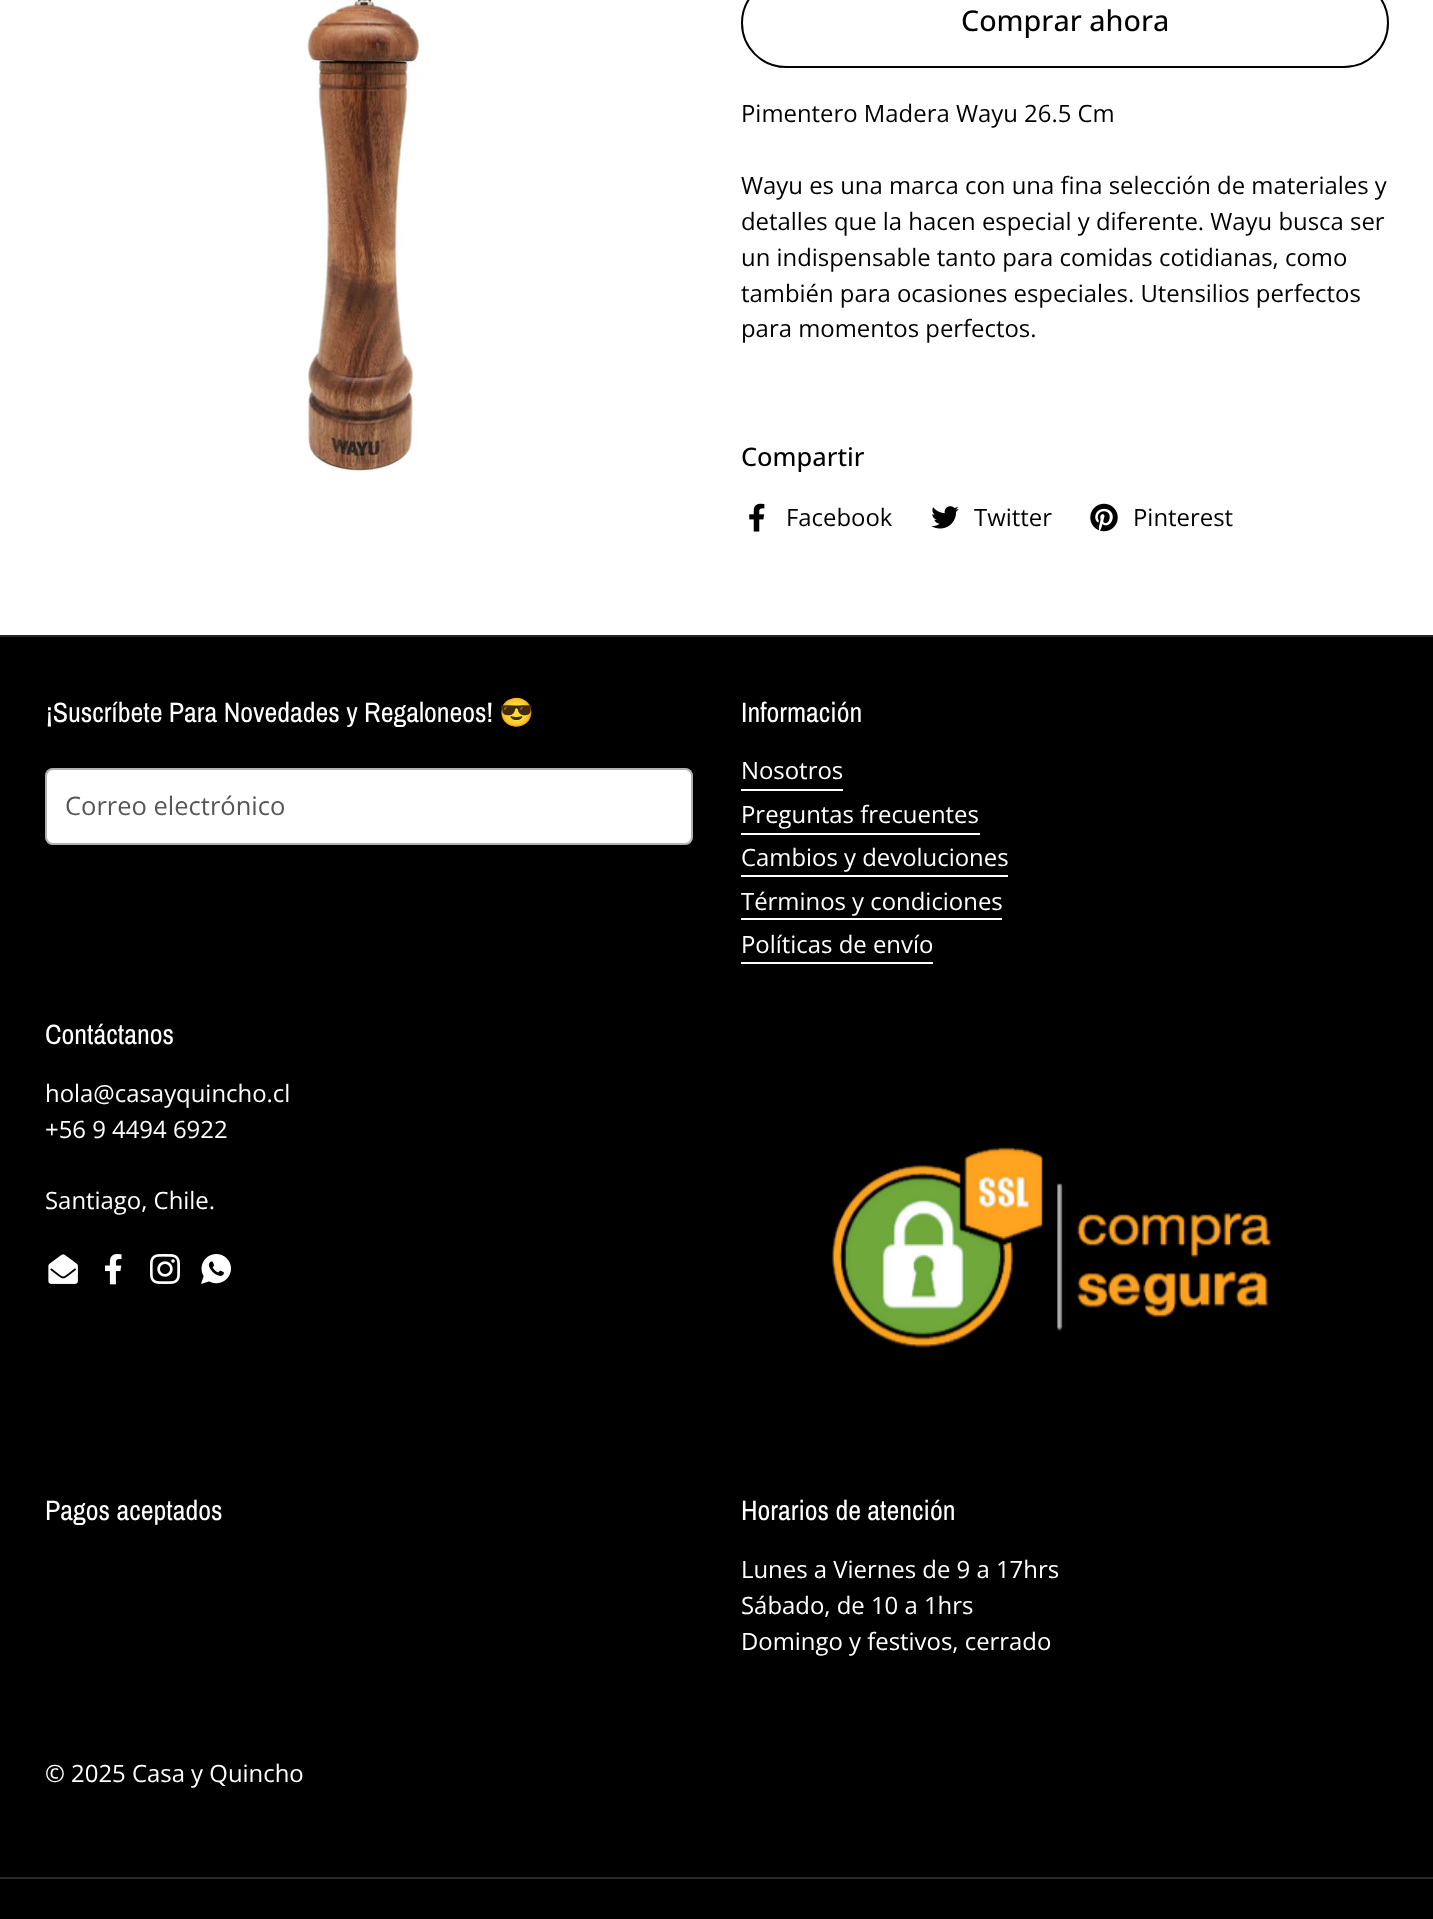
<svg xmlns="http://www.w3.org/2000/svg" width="1433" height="1919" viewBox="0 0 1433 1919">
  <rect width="100%" height="100%" fill="#ffffff"/>
  <image x="305" y="0" width="117" height="472" href="img1.png"/>
  <rect x="742" y="-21" width="646" height="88" rx="44" fill="none" stroke="#000000" stroke-width="2"/>
  <text x="961" y="31" font-family="Open Sans" font-size="28.75" font-weight="500" fill="#000000">Comprar ahora</text>
  <text x="741" y="122" font-family="Open Sans" font-size="23.9" fill="#000000">Pimentero Madera Wayu 26.5 Cm</text>
  <text x="741" y="194" font-family="Open Sans" font-size="23.9" fill="#000000">Wayu es una marca con una fina selección de materiales y</text>
  <text x="741" y="230" font-family="Open Sans" font-size="23.9" fill="#000000">detalles que la hacen especial y diferente. Wayu busca ser</text>
  <text x="741" y="266" font-family="Open Sans" font-size="23.9" fill="#000000">un indispensable tanto para comidas cotidianas, como</text>
  <text x="741" y="302" font-family="Open Sans" font-size="23.9" fill="#000000">también para ocasiones especiales. Utensilios perfectos</text>
  <text x="741" y="337" font-family="Open Sans" font-size="23.9" fill="#000000">para momentos perfectos.</text>
  <text x="741" y="466" font-family="Open Sans" font-size="25.5" font-weight="500" fill="#000000">Compartir</text>
  <image x="749" y="503" width="16" height="29" href="img2.png"/>
  <text x="786" y="526" font-family="Open Sans" font-size="23.9" fill="#000000">Facebook</text>
  <image x="931" y="506" width="28" height="23" href="img3.png"/>
  <text x="974" y="526" font-family="Open Sans" font-size="23.9" fill="#000000">Twitter</text>
  <image x="1090" y="503" width="28" height="29" href="img4.png"/>
  <text x="1133" y="526" font-family="Open Sans" font-size="23.9" fill="#000000">Pinterest</text>
  <rect x="0" y="637" width="1433" height="1282" fill="#000000"/>
  <rect x="0" y="635" width="1433" height="2" fill="#262626"/>
  <text x="45" y="722" font-family="Archivo Narrow" font-size="28" fill="#ffffff">¡Suscríbete Para Novedades y Regaloneos!</text>
  <text x="499" y="722" font-family="Noto Color Emoji" font-size="28" fill="#ffffff">😎</text>
  <rect x="45" y="768" width="648" height="77" rx="8" fill="#ffffff"/>
  <rect x="46" y="769" width="646" height="75" rx="7" fill="none" stroke="#000000" stroke-opacity="0.3" stroke-width="2"/>
  <text x="65" y="815" font-family="Open Sans" font-size="25.5" fill="#575757">Correo electrónico</text>
  <text x="741" y="722" font-family="Archivo Narrow" font-size="28" fill="#ffffff">Información</text>
  <text x="741" y="779" font-family="Open Sans" font-size="23.9" fill="#ffffff">Nosotros</text>
  <rect x="741" y="789" width="102" height="2" fill="#ffffff"/>
  <text x="741" y="823" font-family="Open Sans" font-size="23.9" fill="#ffffff">Preguntas frecuentes</text>
  <rect x="741" y="833" width="239" height="2" fill="#ffffff"/>
  <text x="741" y="866" font-family="Open Sans" font-size="23.9" fill="#ffffff">Cambios y devoluciones</text>
  <rect x="741" y="875" width="267" height="2" fill="#ffffff"/>
  <text x="741" y="910" font-family="Open Sans" font-size="23.9" fill="#ffffff">Términos y condiciones</text>
  <rect x="741" y="918" width="261" height="2" fill="#ffffff"/>
  <text x="741" y="953" font-family="Open Sans" font-size="23.9" fill="#ffffff">Políticas de envío</text>
  <rect x="741" y="962" width="192" height="2" fill="#ffffff"/>
  <text x="45" y="1044" font-family="Archivo Narrow" font-size="28" fill="#ffffff">Contáctanos</text>
  <text x="45" y="1102" font-family="Open Sans" font-size="23.9" fill="#ffffff">hola@casayquincho.cl</text>
  <text x="45" y="1138" font-family="Open Sans" font-size="23.9" fill="#ffffff">+56 9 4494 6922</text>
  <text x="45" y="1209" font-family="Open Sans" font-size="23.9" fill="#ffffff">Santiago, Chile.</text>
  <image x="48" y="1254" width="30" height="30" href="img5.png"/>
  <image x="105" y="1254" width="17" height="31" href="img6.png"/>
  <image x="150" y="1254" width="30" height="30" href="img7.png"/>
  <image x="201" y="1254" width="30" height="30" href="img8.png"/>
  <image x="831" y="1147" width="441" height="201" href="img9.png"/>
  <text x="45" y="1520" font-family="Archivo Narrow" font-size="28" fill="#ffffff">Pagos aceptados</text>
  <text x="741" y="1520" font-family="Archivo Narrow" font-size="28" fill="#ffffff">Horarios de atención</text>
  <text x="741" y="1578" font-family="Open Sans" font-size="23.9" fill="#ffffff">Lunes a Viernes de 9 a 17hrs</text>
  <text x="741" y="1614" font-family="Open Sans" font-size="23.9" fill="#ffffff">Sábado, de 10 a 1hrs</text>
  <text x="741" y="1650" font-family="Open Sans" font-size="23.9" fill="#ffffff">Domingo y festivos, cerrado</text>
  <text x="45" y="1782" font-family="Open Sans" font-size="23.9" fill="#ffffff">© 2025 Casa y Quincho</text>
  <rect x="0" y="1877" width="1433" height="2" fill="#262626"/>
</svg>
